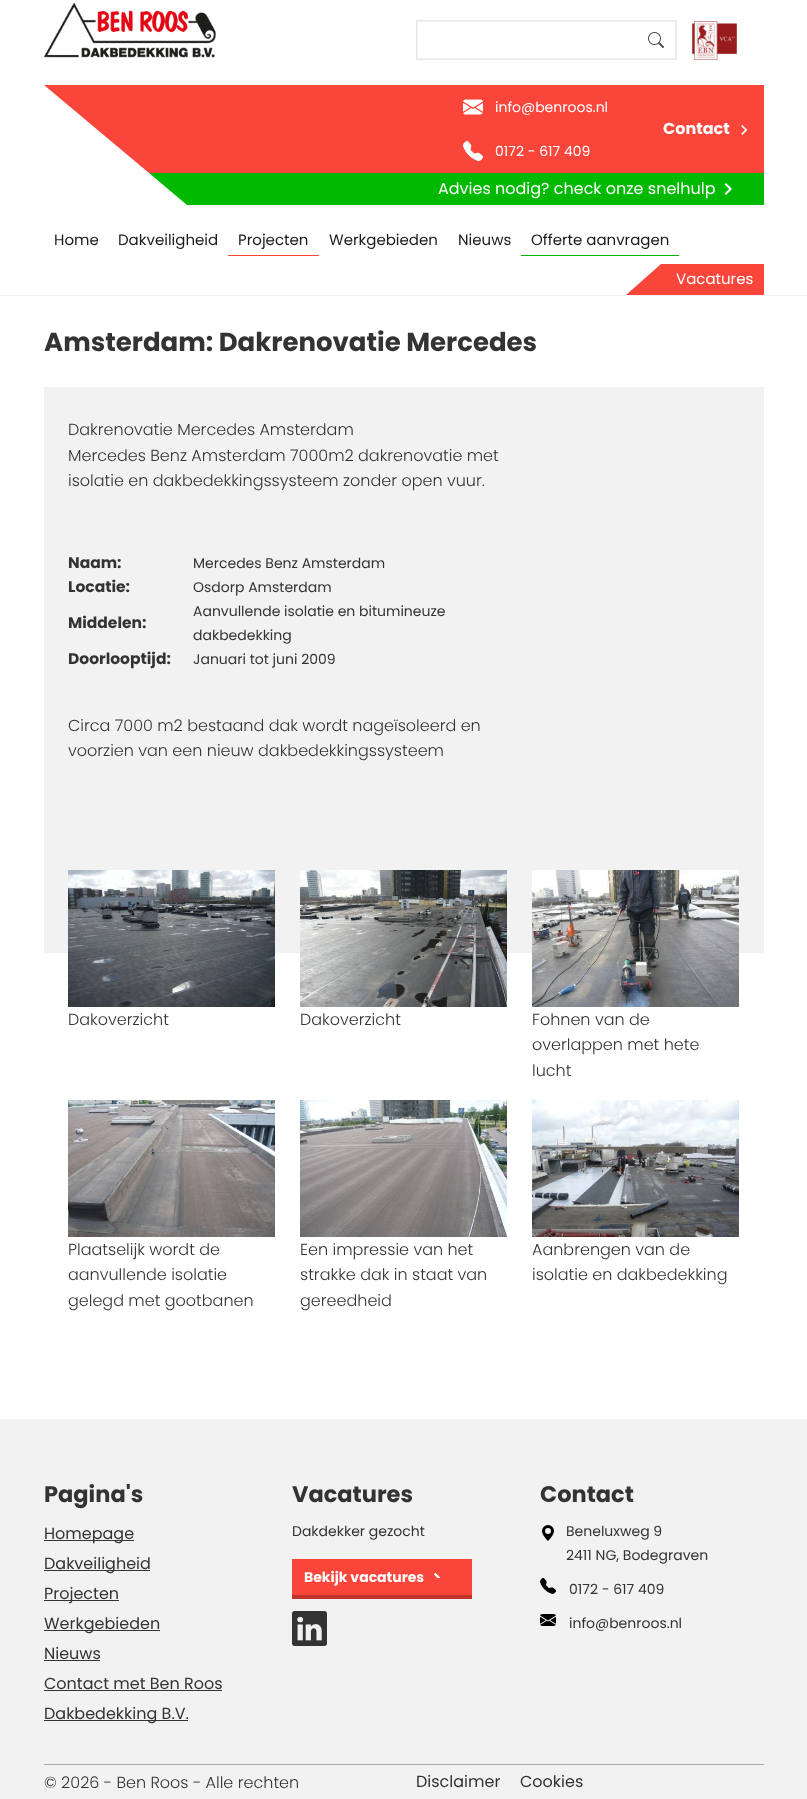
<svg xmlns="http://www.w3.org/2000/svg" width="807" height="1799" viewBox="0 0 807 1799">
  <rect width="100%" height="100%" fill="#ffffff"/>
  <rect x="0" y="295" width="807" height="1" fill="#f2f2f2"/>
  <image x="44" y="3" width="172" height="55" href="img1.png"/>
  <rect x="416.5" y="20.5" width="260" height="39" fill="none" stroke="#e6e6e6"/>
  <rect x="417.5" y="21.5" width="258" height="37" fill="none" stroke="#f2f2f2"/>
  <image x="648" y="32" width="16" height="16" href="img2.png"/>
  <image x="692" y="21" width="45" height="39" href="img3.png"/>
  <path d="M764 85V173H149L44 85Z" fill="#fa453a"/>
  <image x="463" y="99" width="20" height="16" href="img4.png"/>
  <text x="495" y="112" font-family="Poppins" font-size="14" fill="#ffffff">info@benroos.nl</text>
  <image x="463" y="141" width="20" height="20" href="img5.png"/>
  <text x="495" y="156" font-family="Poppins" font-size="14" fill="#ffffff">0172 - 617 409</text>
  <text x="663" y="134" font-family="Poppins" font-size="16" font-weight="bold" fill="#ffffff">Contact</text>
  <image x="741" y="125" width="7" height="10" href="img6.png"/>
  <path d="M187 205L149 173H764V205Z" fill="#00b900"/>
  <text x="438" y="194" font-family="Poppins" font-size="16" fill="#ffffff">Advies nodig? check onze snelhulp</text>
  <image x="724" y="183" width="8" height="12" href="img7.png"/>
  <text x="54" y="245" font-family="Poppins" font-size="15" fill="#1a1a1a">Home</text>
  <text x="118" y="245" font-family="Poppins" font-size="15" fill="#1a1a1a">Dakveiligheid</text>
  <rect x="228" y="255" width="91" height="1" fill="#fa453a"/>
  <text x="238" y="245" font-family="Poppins" font-size="15" fill="#1a1a1a">Projecten</text>
  <text x="329" y="245" font-family="Poppins" font-size="15" fill="#1a1a1a">Werkgebieden</text>
  <text x="458" y="245" font-family="Poppins" font-size="15" fill="#1a1a1a">Nieuws</text>
  <rect x="521" y="255" width="158" height="1" fill="#00b900"/>
  <text x="531" y="245" font-family="Poppins" font-size="15" fill="#1a1a1a">Offerte aanvragen</text>
  <path d="M764 264V295H626L661 264Z" fill="#fa453a"/>
  <text x="676" y="284" font-family="Poppins" font-size="15" fill="#ffffff">Vacatures</text>
  <text x="44" y="351" font-family="Poppins" font-size="26" font-weight="bold" fill="#333333">Amsterdam: Dakrenovatie Mercedes</text>
  <rect x="44" y="387" width="720" height="566" fill="#f2f2f2"/>
  <text x="68" y="435" font-family="Poppins" font-size="16" font-weight="300" fill="#333333">Dakrenovatie Mercedes Amsterdam</text>
  <text x="68" y="461" font-family="Poppins" font-size="16" font-weight="300" fill="#333333">Mercedes Benz Amsterdam 7000m2 dakrenovatie met</text>
  <text x="68" y="486" font-family="Poppins" font-size="16" font-weight="300" fill="#333333">isolatie en dakbedekkingssysteem zonder open vuur.</text>
  <text x="68" y="568" font-family="Poppins" font-size="15.5" font-weight="bold" fill="#333333">Naam:</text>
  <text x="193" y="568" font-family="Poppins" font-size="14" fill="#333333">Mercedes Benz Amsterdam</text>
  <text x="68" y="592" font-family="Poppins" font-size="15.5" font-weight="bold" fill="#333333">Locatie:</text>
  <text x="193" y="592" font-family="Poppins" font-size="14" fill="#333333">Osdorp Amsterdam</text>
  <text x="68" y="628" font-family="Poppins" font-size="15.5" font-weight="bold" fill="#333333">Middelen:</text>
  <text x="193" y="616" font-family="Poppins" font-size="14" fill="#333333">Aanvullende isolatie en bitumineuze</text>
  <text x="193" y="640" font-family="Poppins" font-size="14" fill="#333333">dakbedekking</text>
  <text x="68" y="664" font-family="Poppins" font-size="15.5" font-weight="bold" fill="#333333">Doorlooptijd:</text>
  <text x="193" y="664" font-family="Poppins" font-size="14" fill="#333333">Januari tot juni 2009</text>
  <text x="68" y="731" font-family="Poppins" font-size="16" font-weight="300" fill="#333333">Circa 7000 m2 bestaand dak wordt nageïsoleerd en</text>
  <text x="68" y="756" font-family="Poppins" font-size="16" font-weight="300" fill="#333333">voorzien van een nieuw dakbedekkingssysteem</text>
  <image x="68" y="870" width="207" height="137" href="img8.png"/>
  <text x="68" y="1025" font-family="Poppins" font-size="16" font-weight="300" fill="#333333">Dakoverzicht</text>
  <image x="300" y="870" width="207" height="137" href="img9.png"/>
  <text x="300" y="1025" font-family="Poppins" font-size="16" font-weight="300" fill="#333333">Dakoverzicht</text>
  <image x="532" y="870" width="207" height="137" href="img10.png"/>
  <text x="532" y="1025" font-family="Poppins" font-size="16" font-weight="300" fill="#333333">Fohnen van de</text>
  <text x="532" y="1050" font-family="Poppins" font-size="16" font-weight="300" fill="#333333">overlappen met hete</text>
  <text x="532" y="1076" font-family="Poppins" font-size="16" font-weight="300" fill="#333333">lucht</text>
  <image x="68" y="1100" width="207" height="137" href="img11.png"/>
  <text x="68" y="1255" font-family="Poppins" font-size="16" font-weight="300" fill="#333333">Plaatselijk wordt de</text>
  <text x="68" y="1280" font-family="Poppins" font-size="16" font-weight="300" fill="#333333">aanvullende isolatie</text>
  <text x="68" y="1306" font-family="Poppins" font-size="16" font-weight="300" fill="#333333">gelegd met gootbanen</text>
  <image x="300" y="1100" width="207" height="137" href="img12.png"/>
  <text x="300" y="1255" font-family="Poppins" font-size="16" font-weight="300" fill="#333333">Een impressie van het</text>
  <text x="300" y="1280" font-family="Poppins" font-size="16" font-weight="300" fill="#333333">strakke dak in staat van</text>
  <text x="300" y="1306" font-family="Poppins" font-size="16" font-weight="300" fill="#333333">gereedheid</text>
  <image x="532" y="1100" width="207" height="137" href="img13.png"/>
  <text x="532" y="1255" font-family="Poppins" font-size="16" font-weight="300" fill="#333333">Aanbrengen van de</text>
  <text x="532" y="1280" font-family="Poppins" font-size="16" font-weight="300" fill="#333333">isolatie en dakbedekking</text>
  <rect x="0" y="1419" width="807" height="380" fill="#f2f2f2"/>
  <text x="44" y="1502" font-family="Poppins" font-size="22.5" font-weight="bold" fill="#333333">Pagina's</text>
  <rect x="44" y="1540" width="90" height="1" fill="#333333"/>
  <text x="44" y="1539" font-family="Poppins" font-size="16" fill="#333333">Homepage</text>
  <rect x="44" y="1570" width="106" height="1" fill="#333333"/>
  <text x="44" y="1569" font-family="Poppins" font-size="16" fill="#333333">Dakveiligheid</text>
  <rect x="44" y="1600" width="75" height="1" fill="#333333"/>
  <text x="44" y="1599" font-family="Poppins" font-size="16" fill="#333333">Projecten</text>
  <rect x="44" y="1630" width="116" height="1" fill="#333333"/>
  <text x="44" y="1629" font-family="Poppins" font-size="16" fill="#333333">Werkgebieden</text>
  <text x="44" y="1659" font-family="Poppins" font-size="16" fill="#333333">Nieuws</text>
  <rect x="44" y="1660" width="56" height="1" fill="#333333"/>
  <text x="44" y="1689" font-family="Poppins" font-size="16" fill="#333333">Contact met Ben Roos</text>
  <rect x="44" y="1690" width="178" height="1" fill="#333333"/>
  <rect x="44" y="1720" width="144" height="1" fill="#333333"/>
  <text x="44" y="1719" font-family="Poppins" font-size="16" fill="#333333">Dakbedekking B.V.</text>
  <text x="292" y="1502" font-family="Poppins" font-size="22.5" font-weight="bold" fill="#333333">Vacatures</text>
  <text x="292" y="1536" font-family="Poppins" font-size="14" fill="#333333">Dakdekker gezocht</text>
  <rect x="292" y="1559" width="180" height="36" fill="#fa453a"/>
  <text x="304" y="1582" font-family="Poppins" font-size="14" font-weight="bold" fill="#ffffff">Bekijk vacatures</text>
  <image x="434" y="1573" width="6" height="5" href="img14.png"/>
  <rect x="292" y="1595" width="180" height="4" fill="#c0342c"/>
  <image x="292" y="1611" width="35" height="35" href="img15.png"/>
  <text x="540" y="1502" font-family="Poppins" font-size="22.5" font-weight="bold" fill="#333333">Contact</text>
  <image x="542" y="1525" width="12" height="16" href="img16.png"/>
  <text x="566" y="1536" font-family="Poppins" font-size="14" fill="#333333">Beneluxweg 9</text>
  <text x="566" y="1560" font-family="Poppins" font-size="14" fill="#333333">2411 NG, Bodegraven</text>
  <image x="540" y="1578" width="16" height="16" href="img17.png"/>
  <text x="569" y="1594" font-family="Poppins" font-size="14" fill="#333333">0172 - 617 409</text>
  <image x="540" y="1614" width="16" height="12" href="img18.png"/>
  <text x="569" y="1628" font-family="Poppins" font-size="14" fill="#333333">info@benroos.nl</text>
  <rect x="44" y="1764" width="720" height="1" fill="#aaaaaa"/>
  <text x="44" y="1788" font-family="Poppins" font-size="16" font-weight="300" fill="#333333">© 2026 - Ben Roos - Alle rechten</text>
  <text x="416" y="1787" font-family="Poppins" font-size="16" fill="#333333">Disclaimer</text>
  <text x="520" y="1787" font-family="Poppins" font-size="16" fill="#333333">Cookies</text>
</svg>
